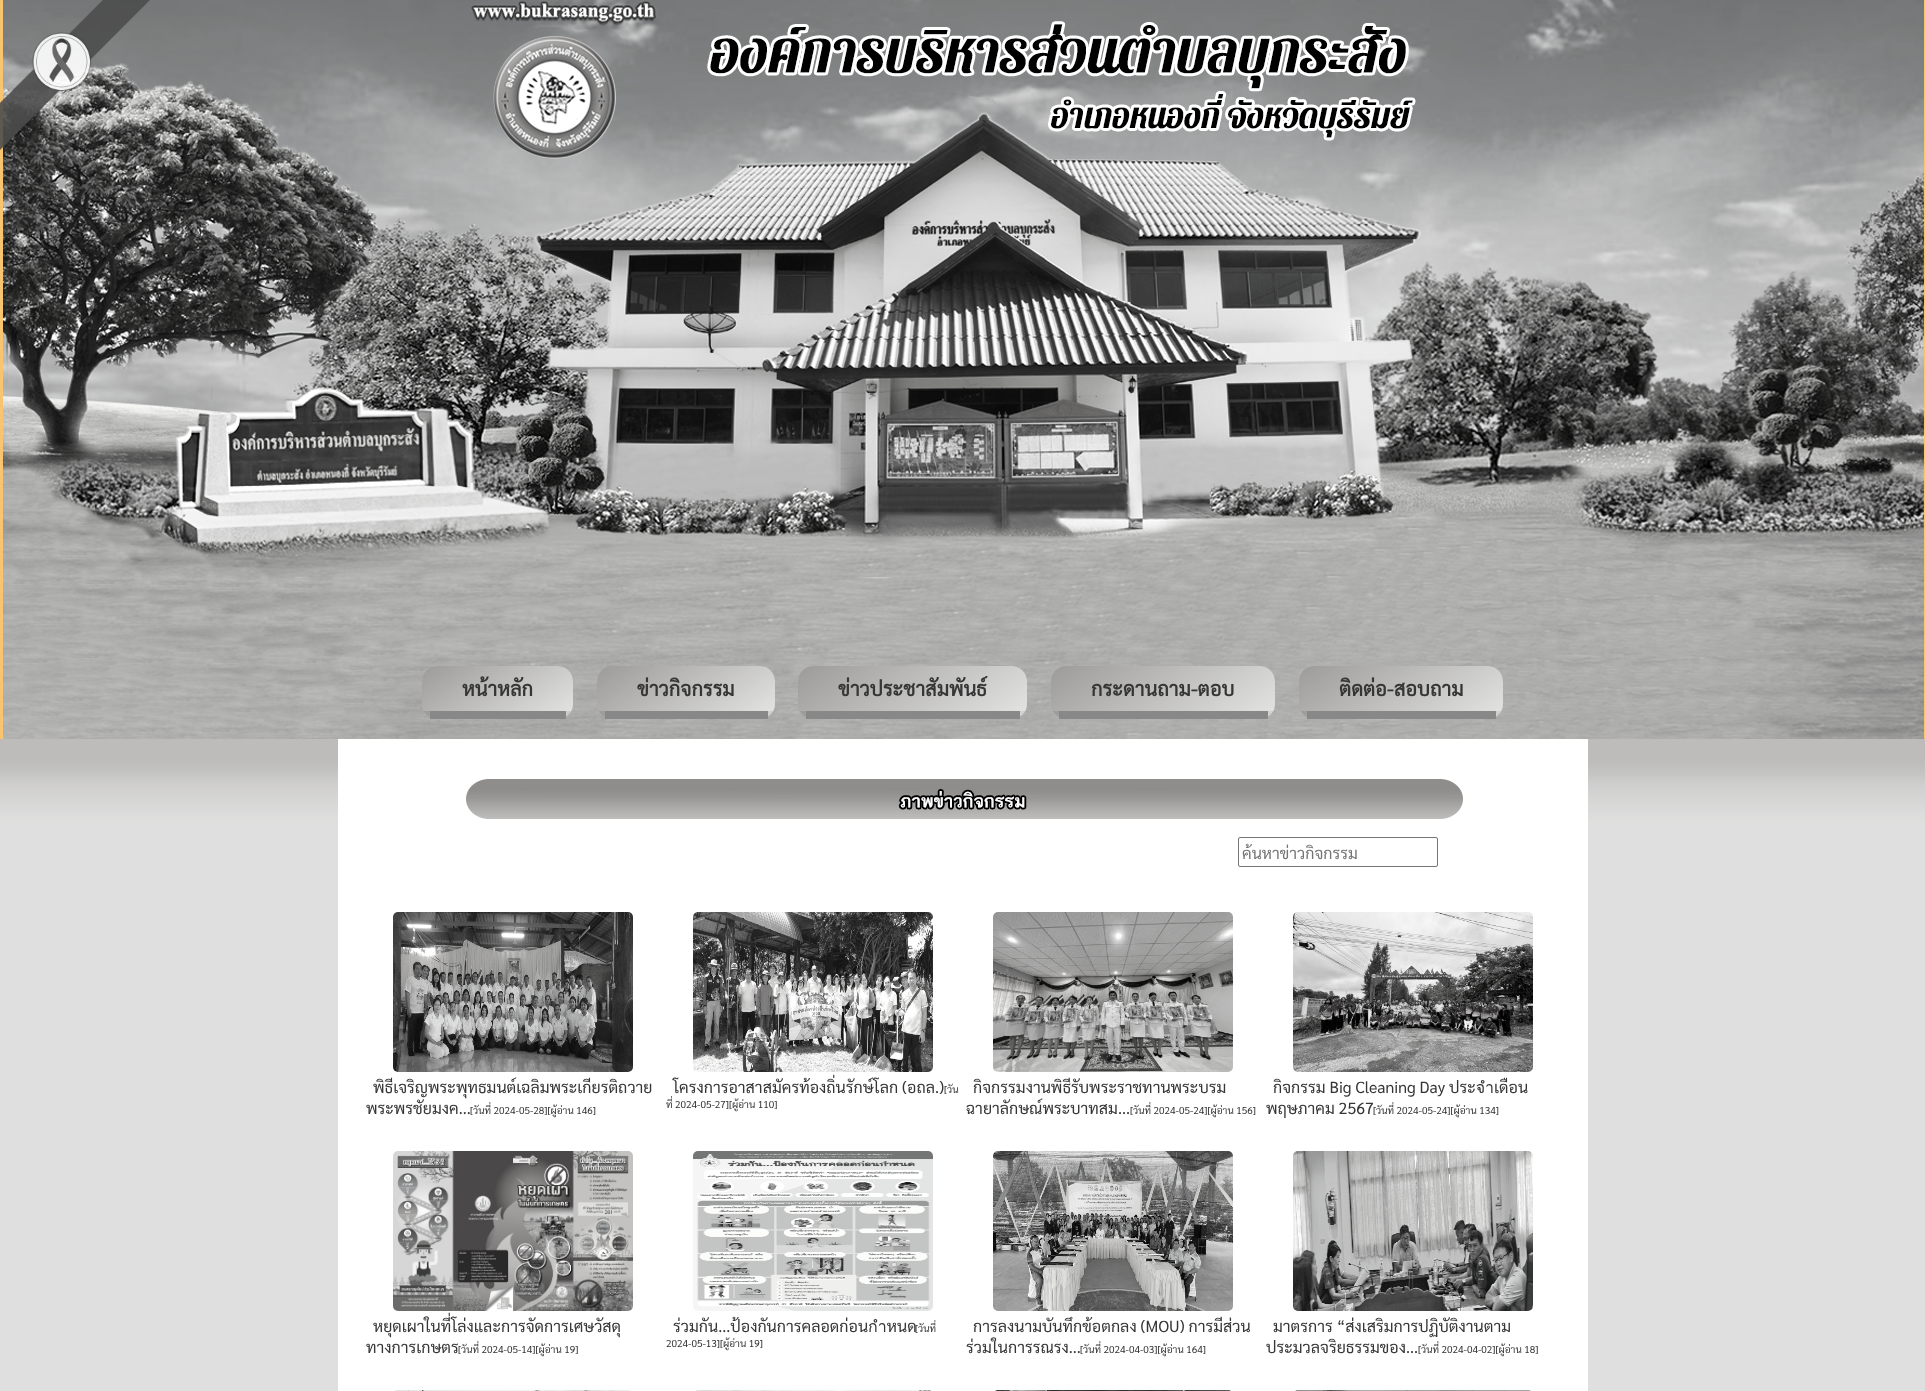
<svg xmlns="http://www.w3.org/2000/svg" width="1925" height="1391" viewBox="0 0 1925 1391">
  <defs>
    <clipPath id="clip1"><rect x="422" y="666" width="151" height="53" rx="15"/></clipPath>
    <linearGradient id="g1" gradientUnits="userSpaceOnUse" x1="462" y1="638" x2="533" y2="739"><stop offset="0" stop-color="#9c9b9a"/><stop offset="1" stop-color="#e2e2e1"/></linearGradient>
    <linearGradient id="g2" gradientUnits="userSpaceOnUse" x1="462" y1="683" x2="533" y2="784"><stop offset="0" stop-color="#9c9b9a"/><stop offset="1" stop-color="#e2e2e1"/></linearGradient>
    <clipPath id="clip2"><rect x="597" y="666" width="178" height="53" rx="15"/></clipPath>
    <linearGradient id="g3" gradientUnits="userSpaceOnUse" x1="646" y1="632" x2="726" y2="745"><stop offset="0" stop-color="#9c9b9a"/><stop offset="1" stop-color="#e2e2e1"/></linearGradient>
    <linearGradient id="g4" gradientUnits="userSpaceOnUse" x1="646" y1="677" x2="726" y2="790"><stop offset="0" stop-color="#9c9b9a"/><stop offset="1" stop-color="#e2e2e1"/></linearGradient>
    <clipPath id="clip3"><rect x="798" y="666" width="229" height="53" rx="15"/></clipPath>
    <linearGradient id="g5" gradientUnits="userSpaceOnUse" x1="864" y1="620" x2="961" y2="757"><stop offset="0" stop-color="#9c9b9a"/><stop offset="1" stop-color="#e2e2e1"/></linearGradient>
    <linearGradient id="g6" gradientUnits="userSpaceOnUse" x1="864" y1="665" x2="961" y2="802"><stop offset="0" stop-color="#9c9b9a"/><stop offset="1" stop-color="#e2e2e1"/></linearGradient>
    <clipPath id="clip4"><rect x="1051" y="666" width="224" height="53" rx="15"/></clipPath>
    <linearGradient id="g7" gradientUnits="userSpaceOnUse" x1="1116" y1="621" x2="1210" y2="756"><stop offset="0" stop-color="#9c9b9a"/><stop offset="1" stop-color="#e2e2e1"/></linearGradient>
    <linearGradient id="g8" gradientUnits="userSpaceOnUse" x1="1116" y1="666" x2="1210" y2="801"><stop offset="0" stop-color="#9c9b9a"/><stop offset="1" stop-color="#e2e2e1"/></linearGradient>
    <clipPath id="clip5"><rect x="1299" y="666" width="204" height="53" rx="15"/></clipPath>
    <linearGradient id="g9" gradientUnits="userSpaceOnUse" x1="1357" y1="625" x2="1445" y2="752"><stop offset="0" stop-color="#9c9b9a"/><stop offset="1" stop-color="#e2e2e1"/></linearGradient>
    <linearGradient id="g10" gradientUnits="userSpaceOnUse" x1="1357" y1="670" x2="1445" y2="797"><stop offset="0" stop-color="#9c9b9a"/><stop offset="1" stop-color="#e2e2e1"/></linearGradient>
    <clipPath id="clip6"><rect x="1242" y="842" width="192" height="21"/></clipPath>
  </defs>
  <rect width="100%" height="100%" fill="#f8c470"/>
  <image x="3" y="0" width="335" height="739" href="img2.png"/>
  <image x="0" y="0" width="150" height="150" href="img1.png"/>
  <image x="338" y="0" width="1250" height="739" href="img3.png"/>
  <image x="493" y="36" width="123" height="123" href="img4.png"/>
  <image x="707" y="21" width="709" height="120" href="img5.png"/>
  <g clip-path="url(#clip1)">
    <path d="M437 666H558C566.5 666 573 672.5 573 681V711H422V681C422 672.5 428.5 666 437 666Z" fill="url(#g1)"/>
    <rect x="422" y="711" width="151" height="7" fill="url(#g2)"/>
  </g>
  <rect x="430" y="711" width="136" height="8" fill="#888888"/>
  <text x="462" y="696" font-family="Sarabun" font-size="20" font-weight="bold" fill="#363636">หน้าหลัก</text>
  <g clip-path="url(#clip2)">
    <path d="M612 666H760C768.5 666 775 672.5 775 681V711H597V681C597 672.5 603.5 666 612 666Z" fill="url(#g3)"/>
    <rect x="597" y="711" width="178" height="7" fill="url(#g4)"/>
  </g>
  <rect x="605" y="711" width="163" height="8" fill="#888888"/>
  <text x="637" y="696" font-family="Sarabun" font-size="20" font-weight="bold" fill="#363636">ข่าวกิจกรรม</text>
  <g clip-path="url(#clip3)">
    <path d="M813 666H1012C1020.5 666 1027 672.5 1027 681V711H798V681C798 672.5 804.5 666 813 666Z" fill="url(#g5)"/>
    <rect x="798" y="711" width="229" height="7" fill="url(#g6)"/>
  </g>
  <rect x="806" y="711" width="214" height="8" fill="#888888"/>
  <text x="838" y="696" font-family="Sarabun" font-size="20" font-weight="bold" fill="#363636">ข่าวประชาสัมพันธ์</text>
  <g clip-path="url(#clip4)">
    <path d="M1066 666H1260C1268.5 666 1275 672.5 1275 681V711H1051V681C1051 672.5 1057.5 666 1066 666Z" fill="url(#g7)"/>
    <rect x="1051" y="711" width="224" height="7" fill="url(#g8)"/>
  </g>
  <rect x="1059" y="711" width="209" height="8" fill="#888888"/>
  <text x="1091" y="696" font-family="Sarabun" font-size="20" font-weight="bold" fill="#363636">กระดานถาม-ตอบ</text>
  <g clip-path="url(#clip5)">
    <path d="M1314 666H1488C1496.5 666 1503 672.5 1503 681V711H1299V681C1299 672.5 1305.5 666 1314 666Z" fill="url(#g9)"/>
    <rect x="1299" y="711" width="204" height="7" fill="url(#g10)"/>
  </g>
  <rect x="1307" y="711" width="189" height="8" fill="#888888"/>
  <text x="1339" y="696" font-family="Sarabun" font-size="20" font-weight="bold" fill="#363636">ติดต่อ-สอบถาม</text>
  <image x="1588" y="0" width="336" height="739" href="img6.png"/>
  <image x="0" y="739" width="338" height="652" href="img7.png"/>
  <rect x="338" y="739" width="1250" height="652" fill="#ffffff"/>
  <image x="466" y="779" width="997" height="40" href="img8.png"/>
  <rect x="1238.5" y="837.5" width="199" height="29" rx="1.5" fill="none" stroke="#767676"/>
  <g clip-path="url(#clip6)">
    <text x="1242" y="859" font-family="Sarabun" font-size="16" fill="#757575">ค้นหาข่าวกิจกรรม</text>
  </g>
  <image x="393" y="912" width="240" height="160" href="img9.png"/>
  <text x="373" y="1093" font-family="Sarabun" font-size="16" fill="#363636">พิธีเจริญพระพุทธมนต์เฉลิมพระเกียรติถวาย</text>
  <text x="366" y="1114" font-family="Sarabun" font-size="16" fill="#363636">พระพรชัยมงค...</text>
  <text x="470" y="1114" font-family="Sarabun" font-size="10" fill="#363636">[วันที่ 2024-05-28][ผู้อ่าน 146]</text>
  <image x="693" y="912" width="240" height="160" href="img10.png"/>
  <text x="673" y="1093" font-family="Sarabun" font-size="16" fill="#363636">โครงการอาสาสมัครท้องถิ่นรักษ์โลก (อถล.)</text>
  <text x="944" y="1093" font-family="Sarabun" font-size="10" fill="#363636">[วัน</text>
  <text x="666" y="1108" font-family="Sarabun" font-size="10" fill="#363636">ที่ 2024-05-27][ผู้อ่าน 110]</text>
  <image x="993" y="912" width="240" height="160" href="img11.png"/>
  <text x="973" y="1093" font-family="Sarabun" font-size="16" fill="#363636">กิจกรรมงานพิธีรับพระราชทานพระบรม</text>
  <text x="966" y="1114" font-family="Sarabun" font-size="16" fill="#363636">ฉายาลักษณ์พระบาทสม...</text>
  <text x="1130" y="1114" font-family="Sarabun" font-size="10" fill="#363636">[วันที่ 2024-05-24][ผู้อ่าน 156]</text>
  <image x="1293" y="912" width="240" height="160" href="img12.png"/>
  <text x="1273" y="1093" font-family="Sarabun" font-size="16" fill="#363636">กิจกรรม Big Cleaning Day ประจำเดือน</text>
  <text x="1266" y="1114" font-family="Sarabun" font-size="16" fill="#363636">พฤษภาคม 2567</text>
  <text x="1373" y="1114" font-family="Sarabun" font-size="10" fill="#363636">[วันที่ 2024-05-24][ผู้อ่าน 134]</text>
  <image x="393" y="1151" width="240" height="160" href="img13.png"/>
  <text x="373" y="1332" font-family="Sarabun" font-size="16" fill="#363636">หยุดเผาในที่โล่งและการจัดการเศษวัสดุ</text>
  <text x="366" y="1353" font-family="Sarabun" font-size="16" fill="#363636">ทางการเกษตร</text>
  <text x="458" y="1353" font-family="Sarabun" font-size="10" fill="#363636">[วันที่ 2024-05-14][ผู้อ่าน 19]</text>
  <image x="693" y="1151" width="240" height="160" href="img14.png"/>
  <text x="673" y="1332" font-family="Sarabun" font-size="16" fill="#363636">ร่วมกัน...ป้องกันการคลอดก่อนกำหนด</text>
  <text x="915" y="1332" font-family="Sarabun" font-size="10" fill="#363636">[วันที่</text>
  <text x="666" y="1347" font-family="Sarabun" font-size="10" fill="#363636">2024-05-13][ผู้อ่าน 19]</text>
  <image x="993" y="1151" width="240" height="160" href="img15.png"/>
  <text x="973" y="1332" font-family="Sarabun" font-size="16" fill="#363636">การลงนามบันทึกข้อตกลง (MOU) การมีส่วน</text>
  <text x="966" y="1353" font-family="Sarabun" font-size="16" fill="#363636">ร่วมในการรณรง...</text>
  <text x="1080" y="1353" font-family="Sarabun" font-size="10" fill="#363636">[วันที่ 2024-04-03][ผู้อ่าน 164]</text>
  <image x="1293" y="1151" width="240" height="160" href="img16.png"/>
  <text x="1273" y="1332" font-family="Sarabun" font-size="16" fill="#363636">มาตรการ “ส่งเสริมการปฏิบัติงานตาม</text>
  <text x="1266" y="1353" font-family="Sarabun" font-size="16" fill="#363636">ประมวลจริยธรรมของ...</text>
  <text x="1418" y="1353" font-family="Sarabun" font-size="10" fill="#363636">[วันที่ 2024-04-02][ผู้อ่าน 18]</text>
  <image x="395" y="1390" width="236" height="1" href="img17.png"/>
  <image x="695" y="1390" width="236" height="1" href="img18.png"/>
  <image x="995" y="1390" width="236" height="1" href="img19.png"/>
  <image x="1295" y="1390" width="236" height="1" href="img20.png"/>
  <image x="1588" y="739" width="337" height="652" href="img21.png"/>
</svg>
